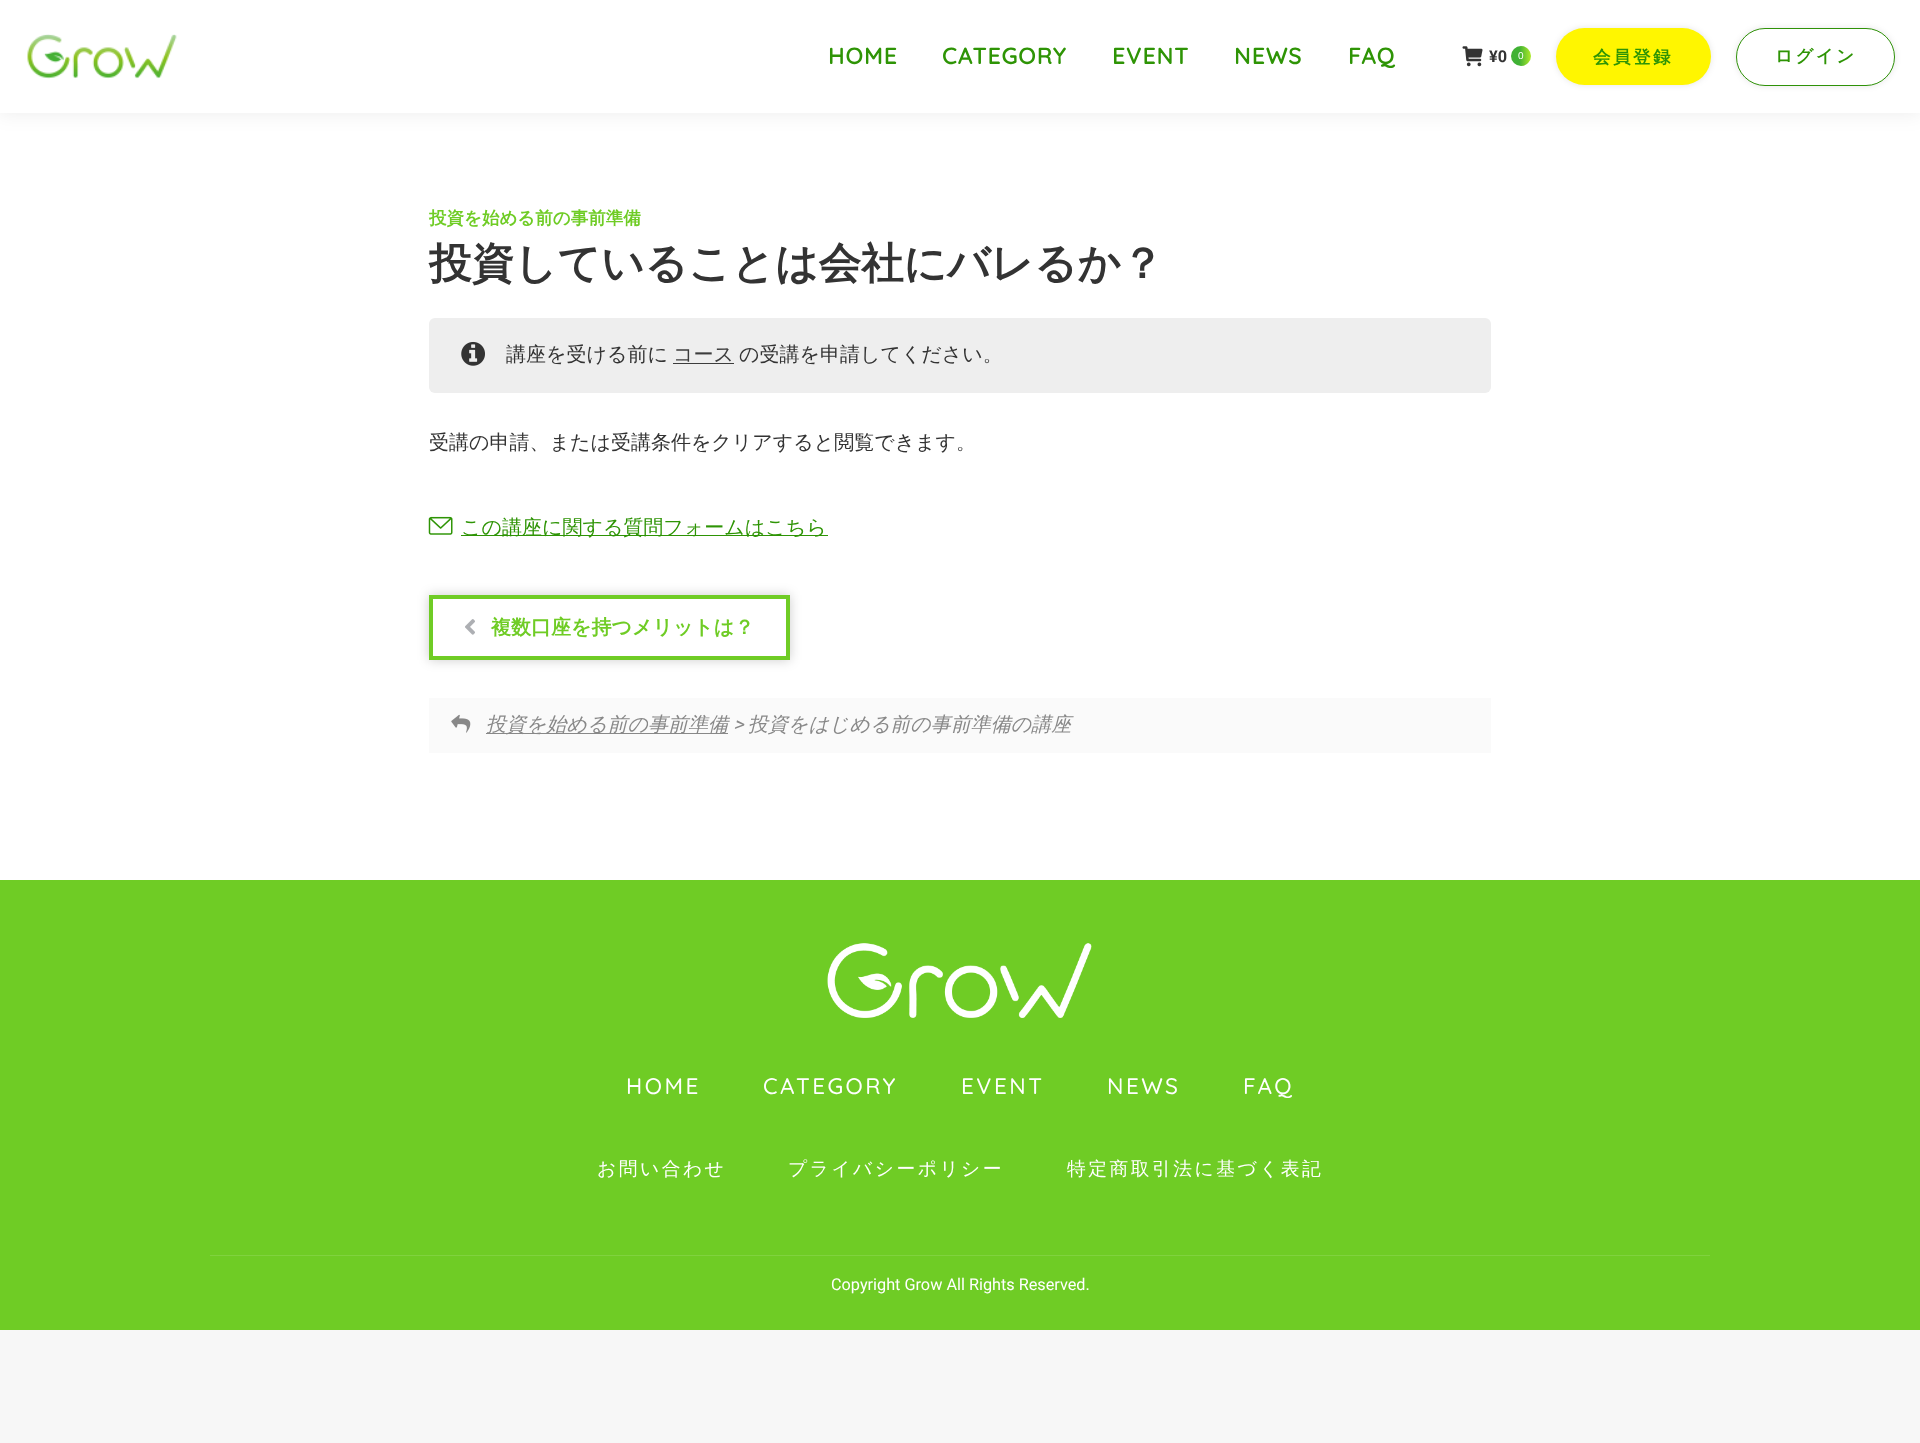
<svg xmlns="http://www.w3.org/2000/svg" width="1920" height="1443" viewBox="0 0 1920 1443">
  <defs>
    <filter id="blur1" x="-50%" y="-200%" width="200%" height="500%"><feGaussianBlur stdDeviation="9.5"/></filter>
    <linearGradient id="g1" gradientUnits="userSpaceOnUse" x1="1511" y1="56" x2="1531" y2="56"><stop offset="0.42" stop-color="#40b134"/><stop offset="1" stop-color="#aeea2a"/></linearGradient>
    <filter id="blur2" x="-50%" y="-200%" width="200%" height="500%"><feGaussianBlur stdDeviation="3"/></filter>
    <clipPath id="clip1"><path d="M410 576H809V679H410ZM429 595H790V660H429Z" clip-rule="evenodd"/></clipPath>
    <filter id="blur3" x="-50%" y="-200%" width="200%" height="500%"><feGaussianBlur stdDeviation="6"/></filter>
  </defs>
  <rect width="100%" height="100%" fill="#f7f7f7"/>
  <rect x="0" y="113" width="1920" height="767" fill="#ffffff"/>
  <rect x="-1" y="-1" width="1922" height="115" fill="#000000" fill-opacity="0.07" filter="url(#blur1)"/>
  <rect x="0" y="0" width="1920" height="113" fill="#ffffff"/>
  <image x="27" y="34" width="150" height="45" href="img1.png"/>
  <text x="828" y="64" font-family="Quicksand" font-size="22.5" font-weight="bold" letter-spacing="1.25" fill="#2e9405">HOME</text>
  <text x="942" y="64" font-family="Quicksand" font-size="22.5" font-weight="bold" letter-spacing="1.25" fill="#2e9405">CATEGORY</text>
  <text x="1112" y="64" font-family="Quicksand" font-size="22.5" font-weight="bold" letter-spacing="1.25" fill="#2e9405">EVENT</text>
  <text x="1234" y="64" font-family="Quicksand" font-size="22.5" font-weight="bold" letter-spacing="1.25" fill="#2e9405">NEWS</text>
  <text x="1348" y="64" font-family="Quicksand" font-size="22.5" font-weight="bold" letter-spacing="1.25" fill="#2e9405">FAQ</text>
  <image x="1462" y="46" width="21" height="21" href="img2.png"/>
  <text x="1489" y="62" font-family="Roboto" font-size="16.25" font-weight="bold" fill="#333333">¥0</text>
  <circle cx="1521" cy="56" r="10" fill="url(#g1)"/>
  <text x="1518" y="59" font-family="Liberation Sans" font-size="10" fill="#ffffff">0</text>
  <rect x="1556" y="28" width="155" height="57" rx="28.5" fill="#000000" fill-opacity="0.1" filter="url(#blur2)"/>
  <rect x="1556" y="28" width="155" height="57" rx="28.5" fill="#fff600"/>
  <text x="1593" y="63" font-family="WenQuanYi Zen Hei" font-size="17.5" font-weight="bold" letter-spacing="2.5" fill="#2e9405">会員登録</text>
  <rect x="1736" y="28" width="159" height="58" rx="29" fill="#000000" fill-opacity="0.1" filter="url(#blur2)"/>
  <rect x="1736.5" y="28.5" width="158" height="57" rx="28.5" fill="#ffffff" stroke="#2f9208"/>
  <text x="1775" y="62" font-family="WenQuanYi Zen Hei" font-size="17.5" font-weight="bold" letter-spacing="2.5" fill="#2e9405">ログイン</text>
  <text x="429" y="224" font-family="WenQuanYi Zen Hei" font-size="17.5" font-weight="bold" fill="#6fcc25">投資を始める前の事前準備</text>
  <text x="429" y="278" font-family="WenQuanYi Zen Hei" font-size="42.5" font-weight="bold" fill="#333333">投資していることは会社にバレるか？</text>
  <rect x="429" y="318" width="1062" height="75" rx="6" fill="#eeeeee"/>
  <image x="461" y="341" width="24" height="25" href="img3.png"/>
  <text x="506" y="361" font-family="WenQuanYi Zen Hei" font-size="20" font-weight="500" fill="#333333">講座を受ける前に</text>
  <text x="673" y="361" font-family="WenQuanYi Zen Hei" font-size="20" font-weight="500" fill="#3c3c3c">コース</text>
  <rect x="673" y="363" width="61" height="1" fill="#3c3c3c"/>
  <text x="739" y="361" font-family="WenQuanYi Zen Hei" font-size="20" font-weight="500" fill="#333333">の受講を申請してください。</text>
  <text x="429" y="449" font-family="WenQuanYi Zen Hei" font-size="20" font-weight="500" fill="#333333">受講の申請、または受講条件をクリアすると閲覧できます。</text>
  <image x="428" y="516" width="25" height="19" href="img4.png"/>
  <rect x="461" y="535" width="367" height="1" fill="#2e9405"/>
  <text x="461" y="534" font-family="WenQuanYi Zen Hei" font-size="20" font-weight="500" fill="#2e9405">この講座に関する質問フォームはこちら</text>
  <g clip-path="url(#clip1)">
    <rect x="429" y="595" width="361" height="65" fill="#000000" fill-opacity="0.2" filter="url(#blur3)"/>
  </g>
  <rect x="431" y="597" width="357" height="61" fill="none" stroke="#6fcc25" stroke-width="4"/>
  <image x="465" y="619" width="10" height="16" href="img5.png"/>
  <text x="491" y="634" font-family="WenQuanYi Zen Hei" font-size="20" font-weight="bold" fill="#6fcc25">複数口座を持つメリットは？</text>
  <rect x="429" y="698" width="1062" height="55" fill="#fafafa"/>
  <image x="451" y="714" width="20" height="19" href="img6.png"/>
  <rect x="486" y="733" width="242" height="1" fill="#888888"/>
  <text x="486" y="731" font-family="WenQuanYi Zen Hei" font-size="20" font-weight="500" font-style="italic" fill="#888888">投資を始める前の事前準備</text>
  <text x="733" y="731" font-family="Roboto" font-size="20" font-style="italic" fill="#888888">&gt;</text>
  <text x="748" y="731" font-family="WenQuanYi Zen Hei" font-size="20" font-weight="500" font-style="italic" fill="#888888">投資をはじめる前の事前準備の講座</text>
  <rect x="0" y="880" width="1920" height="450" fill="#6fcc25"/>
  <image x="827" y="943" width="265" height="75" href="img7.png"/>
  <text x="626" y="1094" font-family="Quicksand" font-size="22.5" font-weight="300" letter-spacing="2.5" fill="#ffffff">HOME</text>
  <text x="763" y="1094" font-family="Quicksand" font-size="22.5" font-weight="300" letter-spacing="2.5" fill="#ffffff">CATEGORY</text>
  <text x="961" y="1094" font-family="Quicksand" font-size="22.5" font-weight="300" letter-spacing="2.5" fill="#ffffff">EVENT</text>
  <text x="1107" y="1094" font-family="Quicksand" font-size="22.5" font-weight="300" letter-spacing="2.5" fill="#ffffff">NEWS</text>
  <text x="1243" y="1094" font-family="Quicksand" font-size="22.5" font-weight="300" letter-spacing="2.5" fill="#ffffff">FAQ</text>
  <text x="597" y="1175" font-family="WenQuanYi Zen Hei" font-size="18.75" font-weight="500" letter-spacing="2.5" fill="#ffffff">お問い合わせ</text>
  <text x="788" y="1175" font-family="WenQuanYi Zen Hei" font-size="18.75" font-weight="500" letter-spacing="2.5" fill="#ffffff">プライバシーポリシー</text>
  <text x="1067" y="1175" font-family="WenQuanYi Zen Hei" font-size="18.75" font-weight="500" letter-spacing="2.5" fill="#ffffff">特定商取引法に基づく表記</text>
  <rect x="210" y="1255" width="1500" height="1" fill="#80d23f"/>
  <text x="831" y="1290" font-family="Roboto" font-size="16.25" fill="#ffffff">Copyright Grow All Rights Reserved.</text>
</svg>
